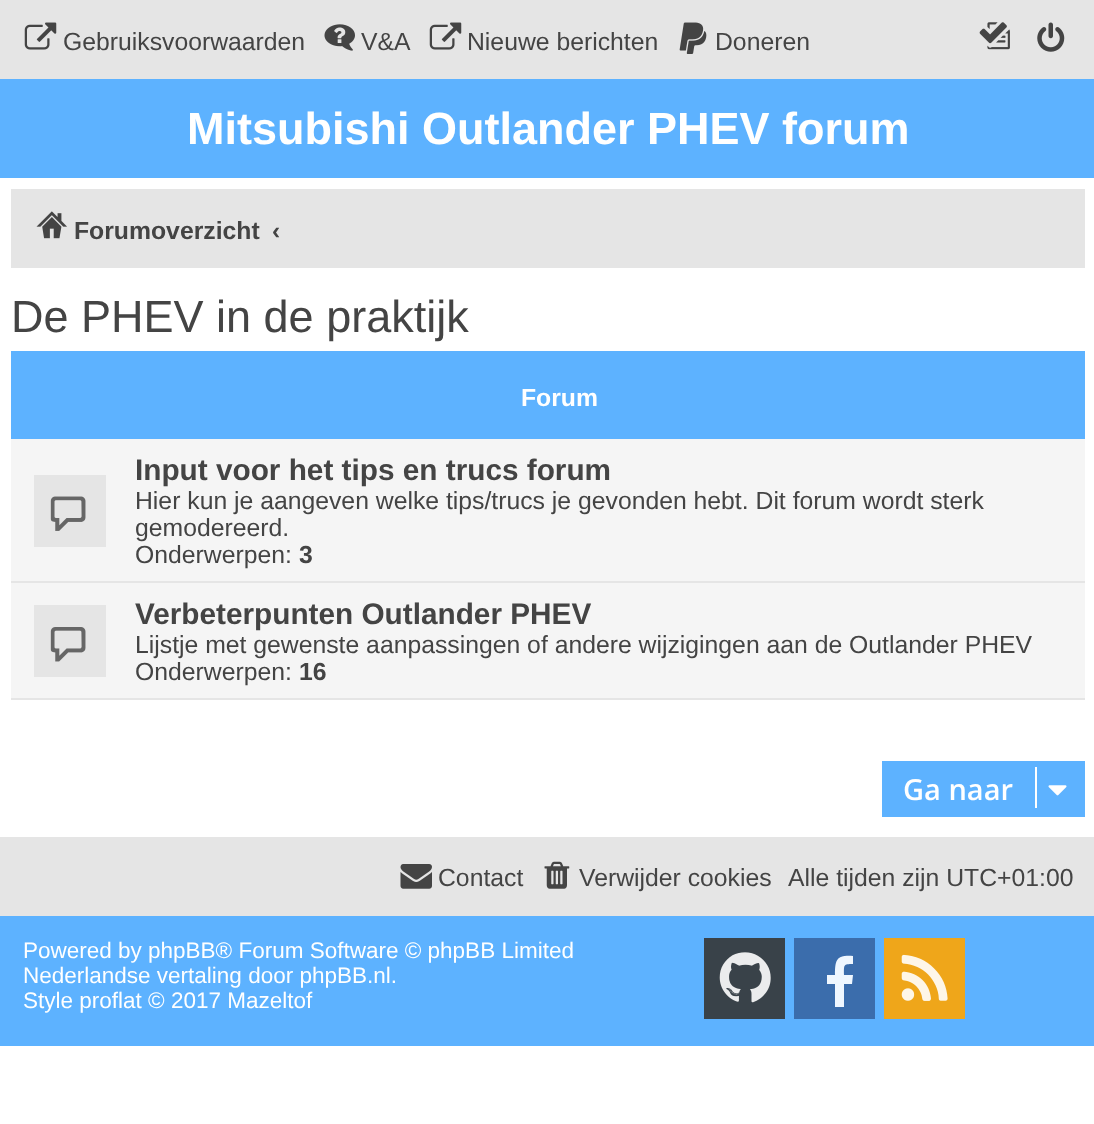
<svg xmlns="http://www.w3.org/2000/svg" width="1094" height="1124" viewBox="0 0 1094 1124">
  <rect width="100%" height="100%" fill="#ffffff"/>
  <rect x="0" y="0" width="1094" height="79" fill="#e5e5e5"/>
  <image x="24" y="22" width="33" height="28" href="img1.png"/>
  <text x="63" y="50" font-family="Liberation Sans" font-size="24.75" fill="#444444">Gebruiksvoorwaarden</text>
  <image x="324" y="24" width="31" height="27" href="img2.png"/>
  <text x="361" y="50" font-family="Liberation Sans" font-size="24.75" fill="#444444">V&amp;A</text>
  <image x="429" y="22" width="33" height="28" href="img3.png"/>
  <text x="467" y="50" font-family="Liberation Sans" font-size="24.75" fill="#444444">Nieuwe berichten</text>
  <image x="679" y="22" width="28" height="32" href="img4.png"/>
  <text x="715" y="50" font-family="Liberation Sans" font-size="24.75" fill="#444444">Doneren</text>
  <image x="979" y="22" width="31" height="28" href="img5.png"/>
  <image x="1037" y="22" width="28" height="30" href="img6.png"/>
  <rect x="0" y="79" width="1094" height="99" fill="#5db2ff"/>
  <text x="187" y="144" font-family="Liberation Sans" font-size="45" font-weight="bold" fill="#ffffff">Mitsubishi Outlander PHEV forum</text>
  <rect x="11" y="189" width="1074" height="79" fill="#e5e5e5"/>
  <image x="36" y="211" width="31" height="28" href="img7.png"/>
  <text x="74" y="239" font-family="Liberation Sans" font-size="24.75" font-weight="bold" fill="#444444">Forumoverzicht</text>
  <text x="272" y="239" font-family="Liberation Sans" font-size="24.75" font-weight="bold" fill="#444444">‹</text>
  <text x="11" y="332" font-family="Liberation Sans" font-size="45" fill="#444444">De PHEV in de praktijk</text>
  <rect x="11" y="351" width="1074" height="88" fill="#5db2ff"/>
  <text x="521" y="406" font-family="Liberation Sans" font-size="24.75" font-weight="bold" fill="#ffffff">Forum</text>
  <rect x="11" y="439" width="1074" height="259" fill="#f5f5f5"/>
  <rect x="11" y="581" width="1074" height="2" fill="#e5e5e5"/>
  <rect x="34" y="475" width="72" height="72" fill="#e5e5e5"/>
  <image x="50" y="496" width="36" height="35" href="img8.png"/>
  <text x="135" y="480" font-family="Liberation Sans" font-size="29.75" font-weight="bold" fill="#444444">Input voor het tips en trucs forum</text>
  <text x="135" y="509" font-family="Liberation Sans" font-size="24.75" fill="#444444">Hier kun je aangeven welke tips/trucs je gevonden hebt. Dit forum wordt sterk</text>
  <text x="135" y="536" font-family="Liberation Sans" font-size="24.75" fill="#444444">gemodereerd.</text>
  <text x="135" y="563" font-family="Liberation Sans" font-size="24.75" fill="#444444">Onderwerpen:</text>
  <text x="299" y="563" font-family="Liberation Sans" font-size="24.75" font-weight="bold" fill="#444444">3</text>
  <rect x="11" y="698" width="1074" height="2" fill="#e5e5e5"/>
  <rect x="34" y="605" width="72" height="72" fill="#e5e5e5"/>
  <image x="50" y="627" width="36" height="35" href="img9.png"/>
  <text x="135" y="624" font-family="Liberation Sans" font-size="29.75" font-weight="bold" fill="#444444">Verbeterpunten Outlander PHEV</text>
  <text x="135" y="653" font-family="Liberation Sans" font-size="24.75" fill="#444444">Lijstje met gewenste aanpassingen of andere wijzigingen aan de Outlander PHEV</text>
  <text x="135" y="680" font-family="Liberation Sans" font-size="24.75" fill="#444444">Onderwerpen:</text>
  <text x="299" y="680" font-family="Liberation Sans" font-size="24.75" font-weight="bold" fill="#444444">16</text>
  <rect x="882" y="761" width="203" height="56" fill="#5db2ff"/>
  <text x="903" y="800" font-family="Open Sans" font-size="29" font-weight="600" fill="#ffffff">Ga naar</text>
  <rect x="1035" y="767" width="2" height="41" fill="#ffffff"/>
  <image x="1048" y="785" width="19" height="11" href="img10.png"/>
  <rect x="0" y="837" width="1094" height="79" fill="#e5e5e5"/>
  <image x="400" y="864" width="32" height="25" href="img11.png"/>
  <text x="438" y="886" font-family="Liberation Sans" font-size="24.75" fill="#444444">Contact</text>
  <image x="544" y="861" width="26" height="28" href="img12.png"/>
  <text x="579" y="886" font-family="Liberation Sans" font-size="24.75" fill="#444444">Verwijder cookies</text>
  <text x="788" y="886" font-family="Liberation Sans" font-size="24.75" fill="#444444">Alle tijden zijn UTC+01:00</text>
  <rect x="0" y="916" width="1094" height="130" fill="#5db2ff"/>
  <text x="23" y="958" font-family="Liberation Sans" font-size="22.5" fill="#ffffff">Powered by phpBB® Forum Software © phpBB Limited</text>
  <text x="23" y="983" font-family="Liberation Sans" font-size="22.5" fill="#ffffff">Nederlandse vertaling door phpBB.nl.</text>
  <text x="23" y="1008" font-family="Liberation Sans" font-size="22.5" fill="#ffffff">Style proflat © 2017 Mazeltof</text>
  <rect x="704" y="938" width="81" height="81" fill="#394249"/>
  <image x="719" y="952" width="52" height="51" href="img13.png"/>
  <rect x="794" y="938" width="81" height="81" fill="#3b6dac"/>
  <path d="M853 956V964C843 964 844 965 844 975H853L852 984H844V1007H835V984H827V975H835C835 959 837 955 853 956Z" fill="#eff7ff"/>
  <rect x="884" y="938" width="81" height="81" fill="#efa61a"/>
  <image x="901" y="954" width="47" height="47" href="img14.png"/>
</svg>
